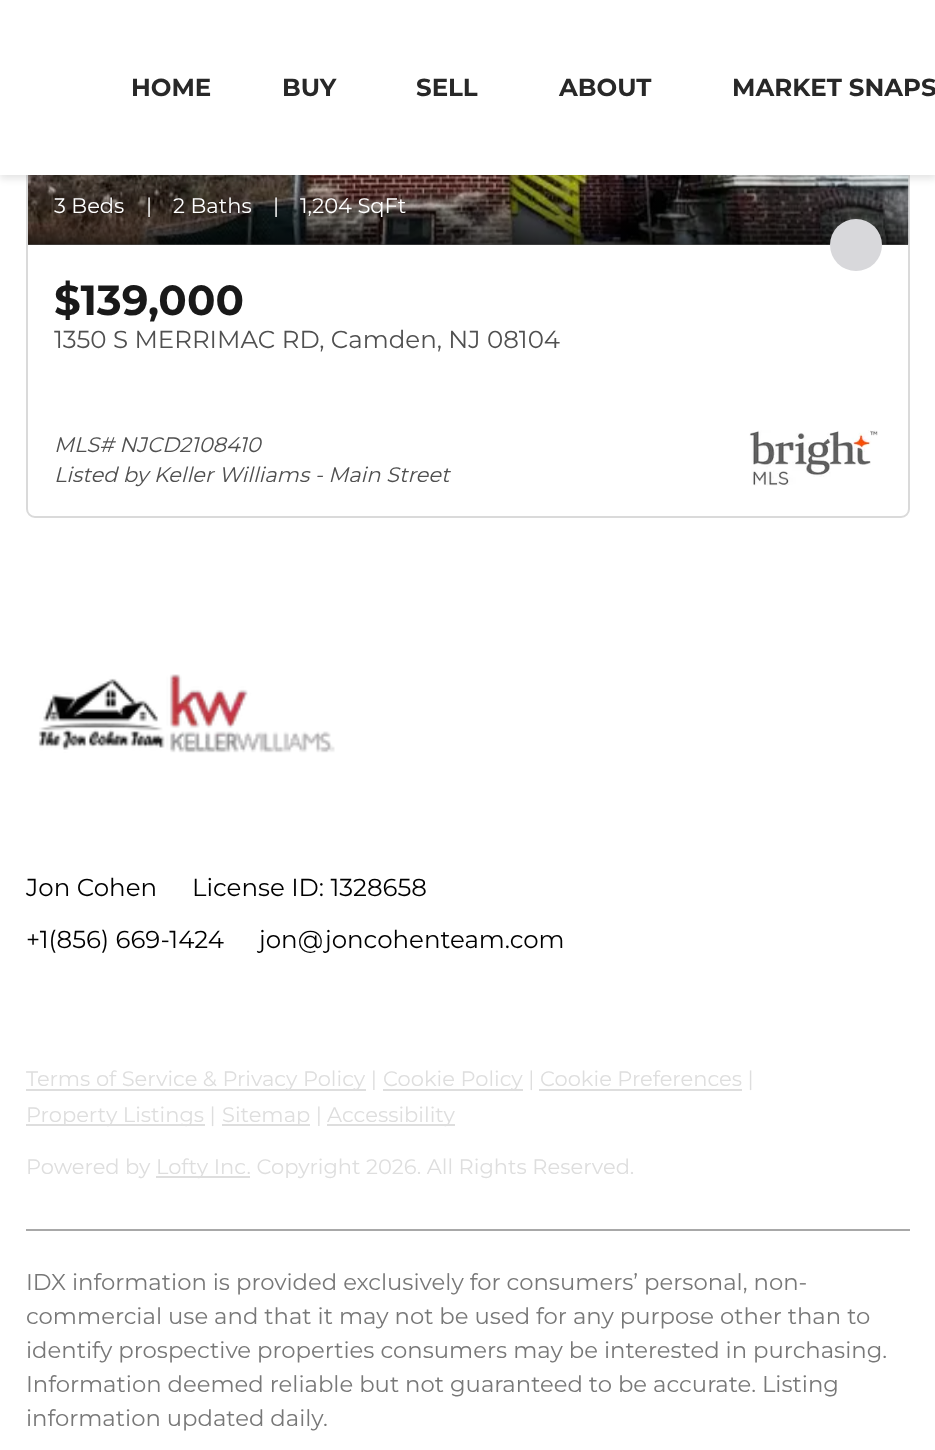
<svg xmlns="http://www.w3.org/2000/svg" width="935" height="1450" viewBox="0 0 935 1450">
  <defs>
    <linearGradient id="g1" gradientUnits="userSpaceOnUse" x1="468" y1="175" x2="468" y2="245"><stop offset="0" stop-color="#000000" stop-opacity="0"/><stop offset="1" stop-color="#000000" stop-opacity="0.7"/></linearGradient>
    <filter id="blur1" x="-50%" y="-200%" width="200%" height="500%"><feGaussianBlur stdDeviation="3.5"/></filter>
  </defs>
  <rect width="100%" height="100%" fill="#ffffff"/>
  <rect x="27" y="-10" width="882" height="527" rx="8" fill="none" stroke="#dadada" stroke-width="2"/>
  <image x="28" y="175" width="881" height="70" href="img1.png"/>
  <rect x="28" y="177" width="880" height="68" fill="url(#g1)"/>
  <rect x="0" y="4" width="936" height="175" fill="#000000" fill-opacity="0.1" filter="url(#blur1)"/>
  <rect x="0" y="0" width="935" height="175" fill="#ffffff"/>
  <text x="131" y="96" font-family="Montserrat" font-size="24.5" font-weight="bold" fill="#282828">HOME</text>
  <text x="282" y="96" font-family="Montserrat" font-size="24.5" font-weight="bold" fill="#282828">BUY</text>
  <text x="416" y="96" font-family="Montserrat" font-size="24.5" font-weight="bold" fill="#282828">SELL</text>
  <text x="559" y="96" font-family="Montserrat" font-size="24.5" font-weight="bold" fill="#282828">ABOUT</text>
  <text x="732" y="96" font-family="Montserrat" font-size="24.5" font-weight="bold" fill="#282828">MARKET SNAPS</text>
  <text x="54" y="213" font-family="Montserrat" font-size="21" fill="#ffffff">3 Beds</text>
  <text x="146" y="213" font-family="Montserrat" font-size="21" fill="#ffffff">|</text>
  <text x="173" y="213" font-family="Montserrat" font-size="21" fill="#ffffff">2 Baths</text>
  <text x="273" y="213" font-family="Montserrat" font-size="21" fill="#ffffff">|</text>
  <text x="300" y="213" font-family="Montserrat" font-size="21" fill="#ffffff">1,204 SqFt</text>
  <circle cx="856" cy="245" r="26" fill="#d8d8db"/>
  <text x="54" y="315" font-family="Montserrat" font-size="42" font-weight="bold" fill="#191919">$139,000</text>
  <text x="54" y="348" font-family="Montserrat" font-size="24.5" fill="#505050">1350 S MERRIMAC RD, Camden, NJ 08104</text>
  <text x="54" y="452" font-family="Montserrat" font-size="21" font-style="italic" fill="#505050">MLS# NJCD2108410</text>
  <text x="54" y="482" font-family="Montserrat" font-size="21" font-style="italic" fill="#505050">Listed by Keller Williams - Main Street</text>
  <image x="749" y="430" width="129" height="56" href="img2.png"/>
  <image x="38" y="674" width="297" height="79" href="img3.png"/>
  <text x="26" y="896" font-family="Montserrat" font-size="24.5" fill="#000000">Jon Cohen</text>
  <text x="192" y="896" font-family="Montserrat" font-size="24.5" fill="#000000">License ID: 1328658</text>
  <text x="26" y="948" font-family="Montserrat" font-size="24.5" fill="#000000">+1(856) 669-1424</text>
  <text x="259" y="948" font-family="Montserrat" font-size="24.5" fill="#000000">jon@joncohenteam.com</text>
  <rect x="26" y="1089" width="340" height="2" fill="#dedede"/>
  <text x="26" y="1086" font-family="Montserrat" font-size="21" fill="#dedede">Terms of Service &amp; Privacy Policy |</text>
  <rect x="383" y="1089" width="140" height="2" fill="#dedede"/>
  <text x="383" y="1086" font-family="Montserrat" font-size="21" fill="#dedede">Cookie Policy | Cookie Preferences |</text>
  <rect x="539" y="1089" width="203" height="2" fill="#dedede"/>
  <rect x="26" y="1124" width="179" height="2" fill="#dedede"/>
  <text x="26" y="1122" font-family="Montserrat" font-size="21" fill="#dedede">Property Listings |</text>
  <rect x="222" y="1124" width="88" height="2" fill="#dedede"/>
  <text x="222" y="1122" font-family="Montserrat" font-size="21" fill="#dedede">Sitemap |</text>
  <rect x="327" y="1124" width="128" height="2" fill="#dedede"/>
  <text x="327" y="1122" font-family="Montserrat" font-size="21" fill="#dedede">Accessibility</text>
  <text x="26" y="1174" font-family="Montserrat" font-size="21" fill="#dedede">Powered by</text>
  <rect x="156" y="1176" width="94" height="2" fill="#dedede"/>
  <text x="156" y="1174" font-family="Montserrat" font-size="21" fill="#dedede">Lofty Inc. Copyright 2026. All Rights Reserved.</text>
  <rect x="26" y="1229" width="884" height="2" fill="#a8a8a8"/>
  <text x="26" y="1290" font-family="Montserrat" font-size="22.75" fill="#787878">IDX information is provided exclusively for consumers’ personal, non-</text>
  <text x="26" y="1324" font-family="Montserrat" font-size="22.75" fill="#787878">commercial use and that it may not be used for any purpose other than to</text>
  <text x="26" y="1358" font-family="Montserrat" font-size="22.75" fill="#787878">identify prospective properties consumers may be interested in purchasing.</text>
  <text x="26" y="1392" font-family="Montserrat" font-size="22.75" fill="#787878">Information deemed reliable but not guaranteed to be accurate. Listing</text>
  <text x="26" y="1426" font-family="Montserrat" font-size="22.75" fill="#787878">information updated daily.</text>
</svg>
